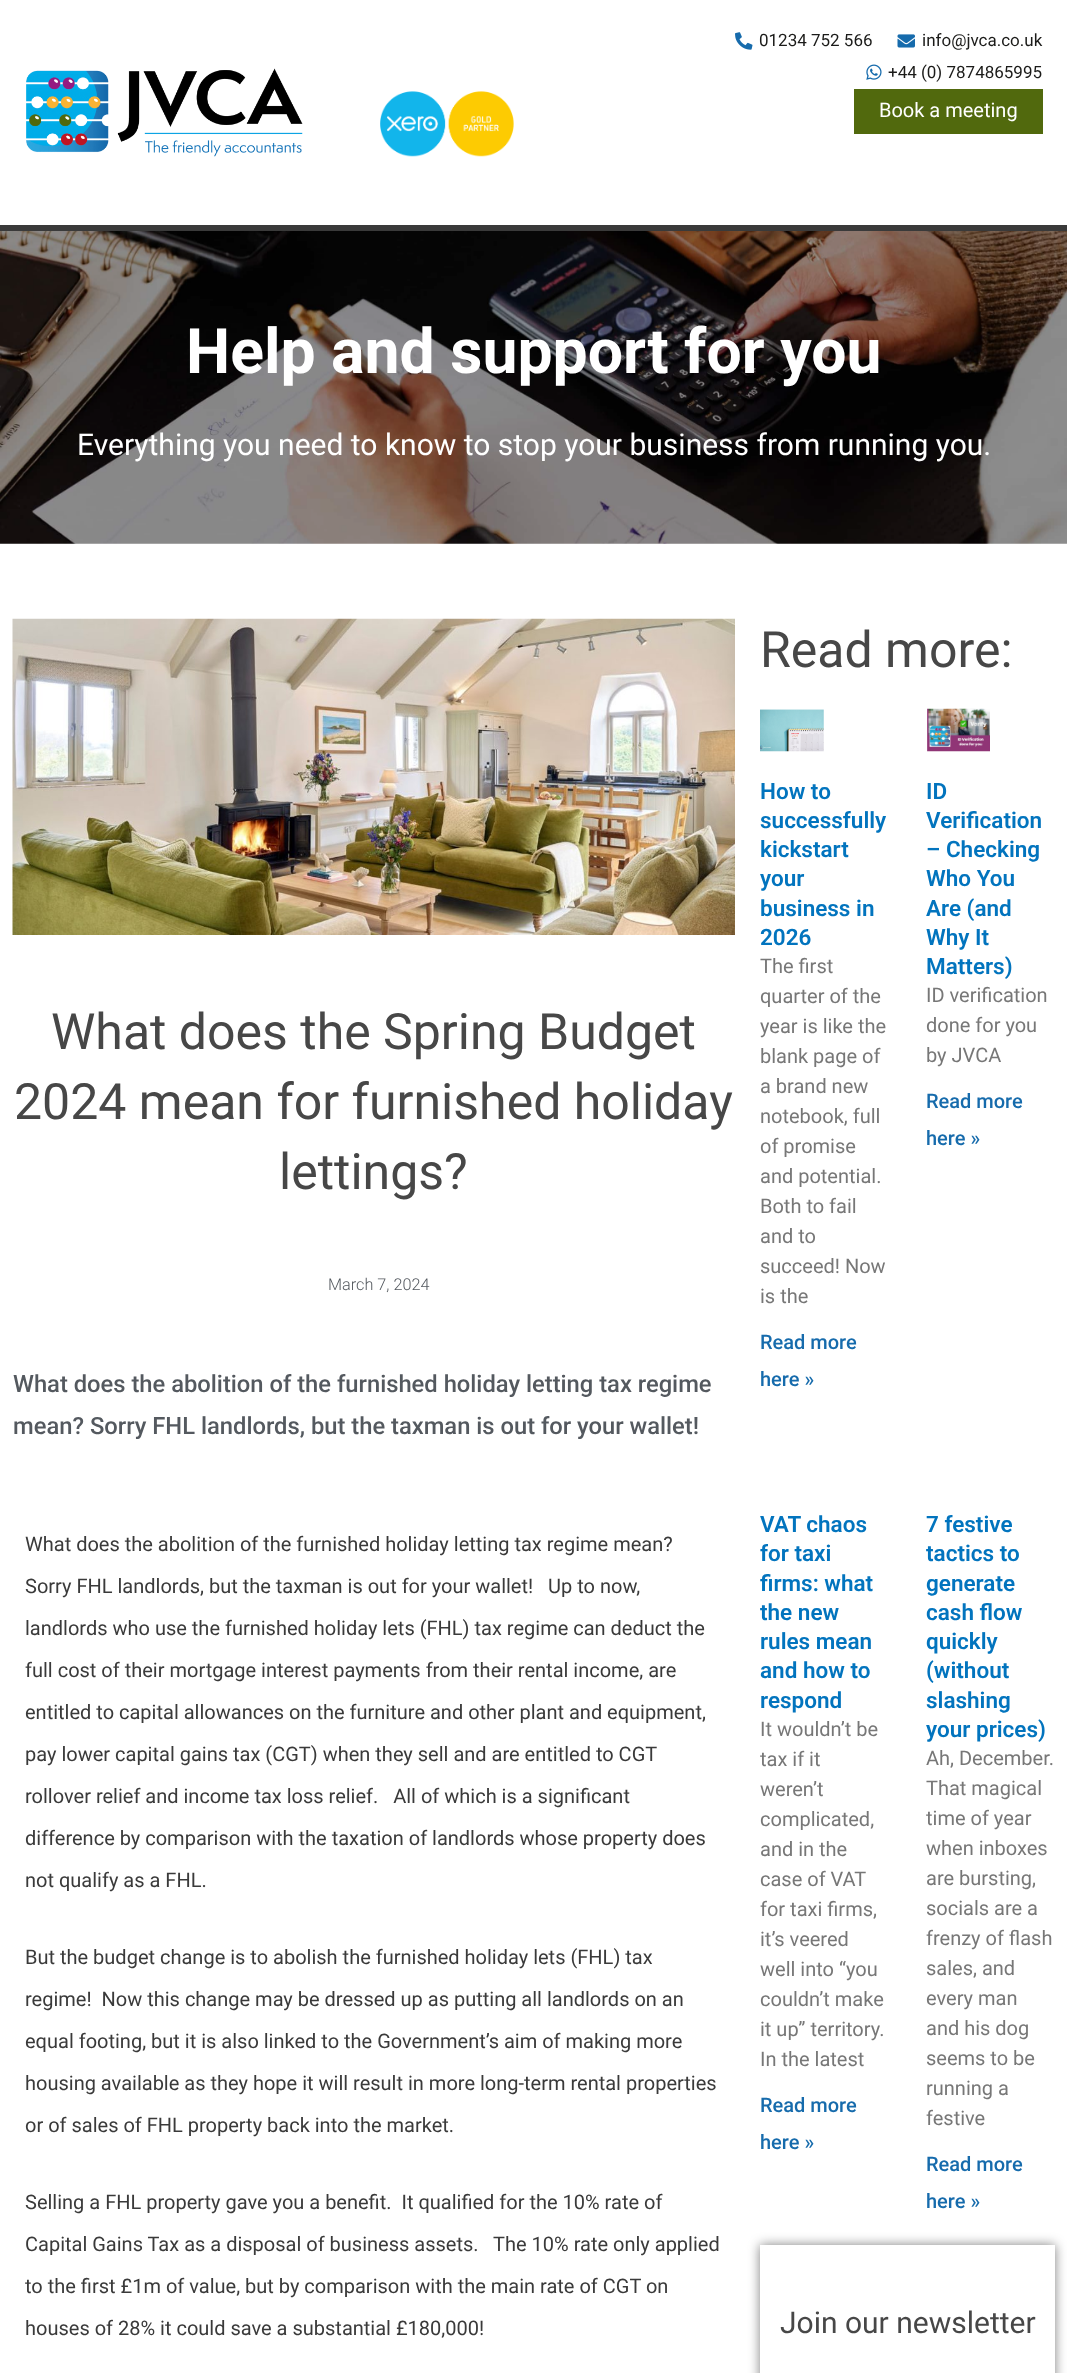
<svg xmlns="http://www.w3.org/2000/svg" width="1067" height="2373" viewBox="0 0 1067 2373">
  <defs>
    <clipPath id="clip1"><path d="M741 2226H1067V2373H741ZM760 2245H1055V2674H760Z" clip-rule="evenodd"/></clipPath>
    <filter id="blur1" x="-50%" y="-200%" width="200%" height="500%"><feGaussianBlur stdDeviation="6"/></filter>
  </defs>
  <rect width="100%" height="100%" fill="#ffffff"/>
  <image x="26" y="68" width="277" height="89" href="img1.png"/>
  <image x="380" y="91" width="134" height="66" href="img2.png"/>
  <image x="735" y="32" width="18" height="18" href="img3.png"/>
  <text x="759" y="46" font-family="Roboto" font-size="17" fill="#1b1b19">01234 752 566</text>
  <image x="897" y="34" width="18" height="14" href="img4.png"/>
  <text x="922" y="46" font-family="Roboto" font-size="17" fill="#1b1b19">info@jvca.co.uk</text>
  <image x="866" y="64" width="16" height="16" href="img5.png"/>
  <text x="888" y="78" font-family="Roboto" font-size="17" fill="#1b1b19">+44 (0) 7874865995</text>
  <rect x="854" y="89" width="189" height="45" fill="#51690d"/>
  <text x="879" y="117" font-family="Roboto" font-size="20" fill="#ffffff">Book a meeting</text>
  <image x="0" y="231" width="1067" height="313" href="img6.png"/>
  <rect x="0" y="225" width="1067" height="6" fill="#3a3a3a"/>
  <text x="186" y="373" font-family="Roboto" font-size="62.5" font-weight="bold" fill="#ffffff">Help and support for you</text>
  <text x="77" y="455" font-family="Roboto" font-size="30" fill="#ffffff">Everything you need to know to stop your business from running you.</text>
  <image x="12" y="618" width="723" height="317" href="img7.png"/>
  <text x="51" y="1049" font-family="Roboto" font-size="50" fill="#474747">What does the Spring Budget</text>
  <text x="14" y="1119" font-family="Roboto" font-size="50" fill="#474747">2024 mean for furnished holiday</text>
  <text x="279" y="1189" font-family="Roboto" font-size="50" fill="#474747">lettings?</text>
  <text x="328" y="1290" font-family="Roboto" font-size="16.25" font-weight="300" fill="#54595f">March 7, 2024</text>
  <text x="13" y="1392" font-family="Roboto" font-size="23.75" font-weight="500" fill="#54595f">What does the abolition of the furnished holiday letting tax regime</text>
  <text x="13" y="1434" font-family="Roboto" font-size="23.75" font-weight="500" fill="#54595f">mean? Sorry FHL landlords, but the taxman is out for your wallet!</text>
  <text x="25" y="1551" font-family="Roboto" font-size="20" fill="#3a3a3a">What does the abolition of the furnished holiday letting tax regime mean?</text>
  <text x="25" y="1593" font-family="Roboto" font-size="20" fill="#3a3a3a" xml:space="preserve">Sorry FHL landlords, but the taxman is out for your wallet!   Up to now,</text>
  <text x="25" y="1635" font-family="Roboto" font-size="20" fill="#3a3a3a">landlords who use the furnished holiday lets (FHL) tax regime can deduct the</text>
  <text x="25" y="1677" font-family="Roboto" font-size="20" fill="#3a3a3a">full cost of their mortgage interest payments from their rental income, are</text>
  <text x="25" y="1719" font-family="Roboto" font-size="20" fill="#3a3a3a">entitled to capital allowances on the furniture and other plant and equipment,</text>
  <text x="25" y="1761" font-family="Roboto" font-size="20" fill="#3a3a3a">pay lower capital gains tax (CGT) when they sell and are entitled to CGT</text>
  <text x="25" y="1803" font-family="Roboto" font-size="20" fill="#3a3a3a" xml:space="preserve">rollover relief and income tax loss relief.   All of which is a significant</text>
  <text x="25" y="1845" font-family="Roboto" font-size="20" fill="#3a3a3a">difference by comparison with the taxation of landlords whose property does</text>
  <text x="25" y="1887" font-family="Roboto" font-size="20" fill="#3a3a3a">not qualify as a FHL.</text>
  <text x="25" y="1964" font-family="Roboto" font-size="20" fill="#3a3a3a">But the budget change is to abolish the furnished holiday lets (FHL) tax</text>
  <text x="25" y="2006" font-family="Roboto" font-size="20" fill="#3a3a3a" xml:space="preserve">regime!  Now this change may be dressed up as putting all landlords on an</text>
  <text x="25" y="2048" font-family="Roboto" font-size="20" fill="#3a3a3a">equal footing, but it is also linked to the Government’s aim of making more</text>
  <text x="25" y="2090" font-family="Roboto" font-size="20" fill="#3a3a3a">housing available as they hope it will result in more long-term rental properties</text>
  <text x="25" y="2132" font-family="Roboto" font-size="20" fill="#3a3a3a">or of sales of FHL property back into the market.</text>
  <text x="25" y="2209" font-family="Roboto" font-size="20" fill="#3a3a3a" xml:space="preserve">Selling a FHL property gave you a benefit.  It qualified for the 10% rate of</text>
  <text x="25" y="2251" font-family="Roboto" font-size="20" fill="#3a3a3a" xml:space="preserve">Capital Gains Tax as a disposal of business assets.   The 10% rate only applied</text>
  <text x="25" y="2293" font-family="Roboto" font-size="20" fill="#3a3a3a">to the first £1m of value, but by comparison with the main rate of CGT on</text>
  <text x="25" y="2335" font-family="Roboto" font-size="20" fill="#3a3a3a">houses of 28% it could save a substantial £180,000!</text>
  <text x="760" y="667" font-family="Roboto" font-size="50" fill="#474747">Read more:</text>
  <image x="760" y="709" width="64" height="43" href="img8.png"/>
  <text x="760" y="799" font-family="Roboto" font-size="22.5" font-weight="600" fill="#0274be">How to</text>
  <text x="760" y="828" font-family="Roboto" font-size="22.5" font-weight="600" fill="#0274be">successfully</text>
  <text x="760" y="857" font-family="Roboto" font-size="22.5" font-weight="600" fill="#0274be">kickstart</text>
  <text x="760" y="886" font-family="Roboto" font-size="22.5" font-weight="600" fill="#0274be">your</text>
  <text x="760" y="916" font-family="Roboto" font-size="22.5" font-weight="600" fill="#0274be">business in</text>
  <text x="760" y="945" font-family="Roboto" font-size="22.5" font-weight="600" fill="#0274be">2026</text>
  <text x="760" y="973" font-family="Roboto" font-size="20" fill="#777777">The first</text>
  <text x="760" y="1003" font-family="Roboto" font-size="20" fill="#777777">quarter of the</text>
  <text x="760" y="1033" font-family="Roboto" font-size="20" fill="#777777">year is like the</text>
  <text x="760" y="1063" font-family="Roboto" font-size="20" fill="#777777">blank page of</text>
  <text x="760" y="1093" font-family="Roboto" font-size="20" fill="#777777">a brand new</text>
  <text x="760" y="1123" font-family="Roboto" font-size="20" fill="#777777">notebook, full</text>
  <text x="760" y="1153" font-family="Roboto" font-size="20" fill="#777777">of promise</text>
  <text x="760" y="1183" font-family="Roboto" font-size="20" fill="#777777">and potential.</text>
  <text x="760" y="1213" font-family="Roboto" font-size="20" fill="#777777">Both to fail</text>
  <text x="760" y="1243" font-family="Roboto" font-size="20" fill="#777777">and to</text>
  <text x="760" y="1273" font-family="Roboto" font-size="20" fill="#777777">succeed! Now</text>
  <text x="760" y="1303" font-family="Roboto" font-size="20" fill="#777777">is the</text>
  <text x="760" y="1349" font-family="Roboto" font-size="20" font-weight="500" fill="#166bac">Read more</text>
  <text x="760" y="1386" font-family="Roboto" font-size="20" font-weight="500" fill="#166bac">here »</text>
  <image x="927" y="708" width="63" height="44" href="img9.png"/>
  <text x="926" y="799" font-family="Roboto" font-size="22.5" font-weight="600" fill="#0274be">ID</text>
  <text x="926" y="828" font-family="Roboto" font-size="22.5" font-weight="600" fill="#0274be">Verification</text>
  <text x="926" y="857" font-family="Roboto" font-size="22.5" font-weight="600" fill="#0274be">– Checking</text>
  <text x="926" y="886" font-family="Roboto" font-size="22.5" font-weight="600" fill="#0274be">Who You</text>
  <text x="926" y="916" font-family="Roboto" font-size="22.5" font-weight="600" fill="#0274be">Are (and</text>
  <text x="926" y="945" font-family="Roboto" font-size="22.5" font-weight="600" fill="#0274be">Why It</text>
  <text x="926" y="974" font-family="Roboto" font-size="22.5" font-weight="600" fill="#0274be">Matters)</text>
  <text x="926" y="1002" font-family="Roboto" font-size="20" fill="#777777">ID verification</text>
  <text x="926" y="1032" font-family="Roboto" font-size="20" fill="#777777">done for you</text>
  <text x="926" y="1062" font-family="Roboto" font-size="20" fill="#777777">by JVCA</text>
  <text x="926" y="1108" font-family="Roboto" font-size="20" font-weight="500" fill="#166bac">Read more</text>
  <text x="926" y="1145" font-family="Roboto" font-size="20" font-weight="500" fill="#166bac">here »</text>
  <text x="760" y="1532" font-family="Roboto" font-size="22.5" font-weight="600" fill="#0274be">VAT chaos</text>
  <text x="760" y="1561" font-family="Roboto" font-size="22.5" font-weight="600" fill="#0274be">for taxi</text>
  <text x="760" y="1591" font-family="Roboto" font-size="22.5" font-weight="600" fill="#0274be">firms: what</text>
  <text x="760" y="1620" font-family="Roboto" font-size="22.5" font-weight="600" fill="#0274be">the new</text>
  <text x="760" y="1649" font-family="Roboto" font-size="22.5" font-weight="600" fill="#0274be">rules mean</text>
  <text x="760" y="1678" font-family="Roboto" font-size="22.5" font-weight="600" fill="#0274be">and how to</text>
  <text x="760" y="1708" font-family="Roboto" font-size="22.5" font-weight="600" fill="#0274be">respond</text>
  <text x="760" y="1736" font-family="Roboto" font-size="20" fill="#777777">It wouldn’t be</text>
  <text x="760" y="1766" font-family="Roboto" font-size="20" fill="#777777">tax if it</text>
  <text x="760" y="1796" font-family="Roboto" font-size="20" fill="#777777">weren’t</text>
  <text x="760" y="1826" font-family="Roboto" font-size="20" fill="#777777">complicated,</text>
  <text x="760" y="1856" font-family="Roboto" font-size="20" fill="#777777">and in the</text>
  <text x="760" y="1886" font-family="Roboto" font-size="20" fill="#777777">case of VAT</text>
  <text x="760" y="1916" font-family="Roboto" font-size="20" fill="#777777">for taxi firms,</text>
  <text x="760" y="1946" font-family="Roboto" font-size="20" fill="#777777">it’s veered</text>
  <text x="760" y="1976" font-family="Roboto" font-size="20" fill="#777777">well into “you</text>
  <text x="760" y="2006" font-family="Roboto" font-size="20" fill="#777777">couldn’t make</text>
  <text x="760" y="2036" font-family="Roboto" font-size="20" fill="#777777">it up” territory.</text>
  <text x="760" y="2066" font-family="Roboto" font-size="20" fill="#777777">In the latest</text>
  <text x="760" y="2112" font-family="Roboto" font-size="20" font-weight="500" fill="#166bac">Read more</text>
  <text x="760" y="2149" font-family="Roboto" font-size="20" font-weight="500" fill="#166bac">here »</text>
  <text x="926" y="1532" font-family="Roboto" font-size="22.5" font-weight="600" fill="#0274be">7 festive</text>
  <text x="926" y="1561" font-family="Roboto" font-size="22.5" font-weight="600" fill="#0274be">tactics to</text>
  <text x="926" y="1591" font-family="Roboto" font-size="22.5" font-weight="600" fill="#0274be">generate</text>
  <text x="926" y="1620" font-family="Roboto" font-size="22.5" font-weight="600" fill="#0274be">cash flow</text>
  <text x="926" y="1649" font-family="Roboto" font-size="22.5" font-weight="600" fill="#0274be">quickly</text>
  <text x="926" y="1678" font-family="Roboto" font-size="22.5" font-weight="600" fill="#0274be">(without</text>
  <text x="926" y="1708" font-family="Roboto" font-size="22.5" font-weight="600" fill="#0274be">slashing</text>
  <text x="926" y="1737" font-family="Roboto" font-size="22.5" font-weight="600" fill="#0274be">your prices)</text>
  <text x="926" y="1765" font-family="Roboto" font-size="20" fill="#777777">Ah, December.</text>
  <text x="926" y="1795" font-family="Roboto" font-size="20" fill="#777777">That magical</text>
  <text x="926" y="1825" font-family="Roboto" font-size="20" fill="#777777">time of year</text>
  <text x="926" y="1855" font-family="Roboto" font-size="20" fill="#777777">when inboxes</text>
  <text x="926" y="1885" font-family="Roboto" font-size="20" fill="#777777">are bursting,</text>
  <text x="926" y="1915" font-family="Roboto" font-size="20" fill="#777777">socials are a</text>
  <text x="926" y="1945" font-family="Roboto" font-size="20" fill="#777777">frenzy of flash</text>
  <text x="926" y="1975" font-family="Roboto" font-size="20" fill="#777777">sales, and</text>
  <text x="926" y="2005" font-family="Roboto" font-size="20" fill="#777777">every man</text>
  <text x="926" y="2035" font-family="Roboto" font-size="20" fill="#777777">and his dog</text>
  <text x="926" y="2065" font-family="Roboto" font-size="20" fill="#777777">seems to be</text>
  <text x="926" y="2095" font-family="Roboto" font-size="20" fill="#777777">running a</text>
  <text x="926" y="2125" font-family="Roboto" font-size="20" fill="#777777">festive</text>
  <text x="926" y="2171" font-family="Roboto" font-size="20" font-weight="500" fill="#166bac">Read more</text>
  <text x="926" y="2208" font-family="Roboto" font-size="20" font-weight="500" fill="#166bac">here »</text>
  <g clip-path="url(#clip1)">
    <rect x="760" y="2245" width="295" height="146" fill="#000000" fill-opacity="0.5" filter="url(#blur1)"/>
  </g>
  <text x="780" y="2333" font-family="Roboto" font-size="30" fill="#474747">Join our newsletter</text>
</svg>
